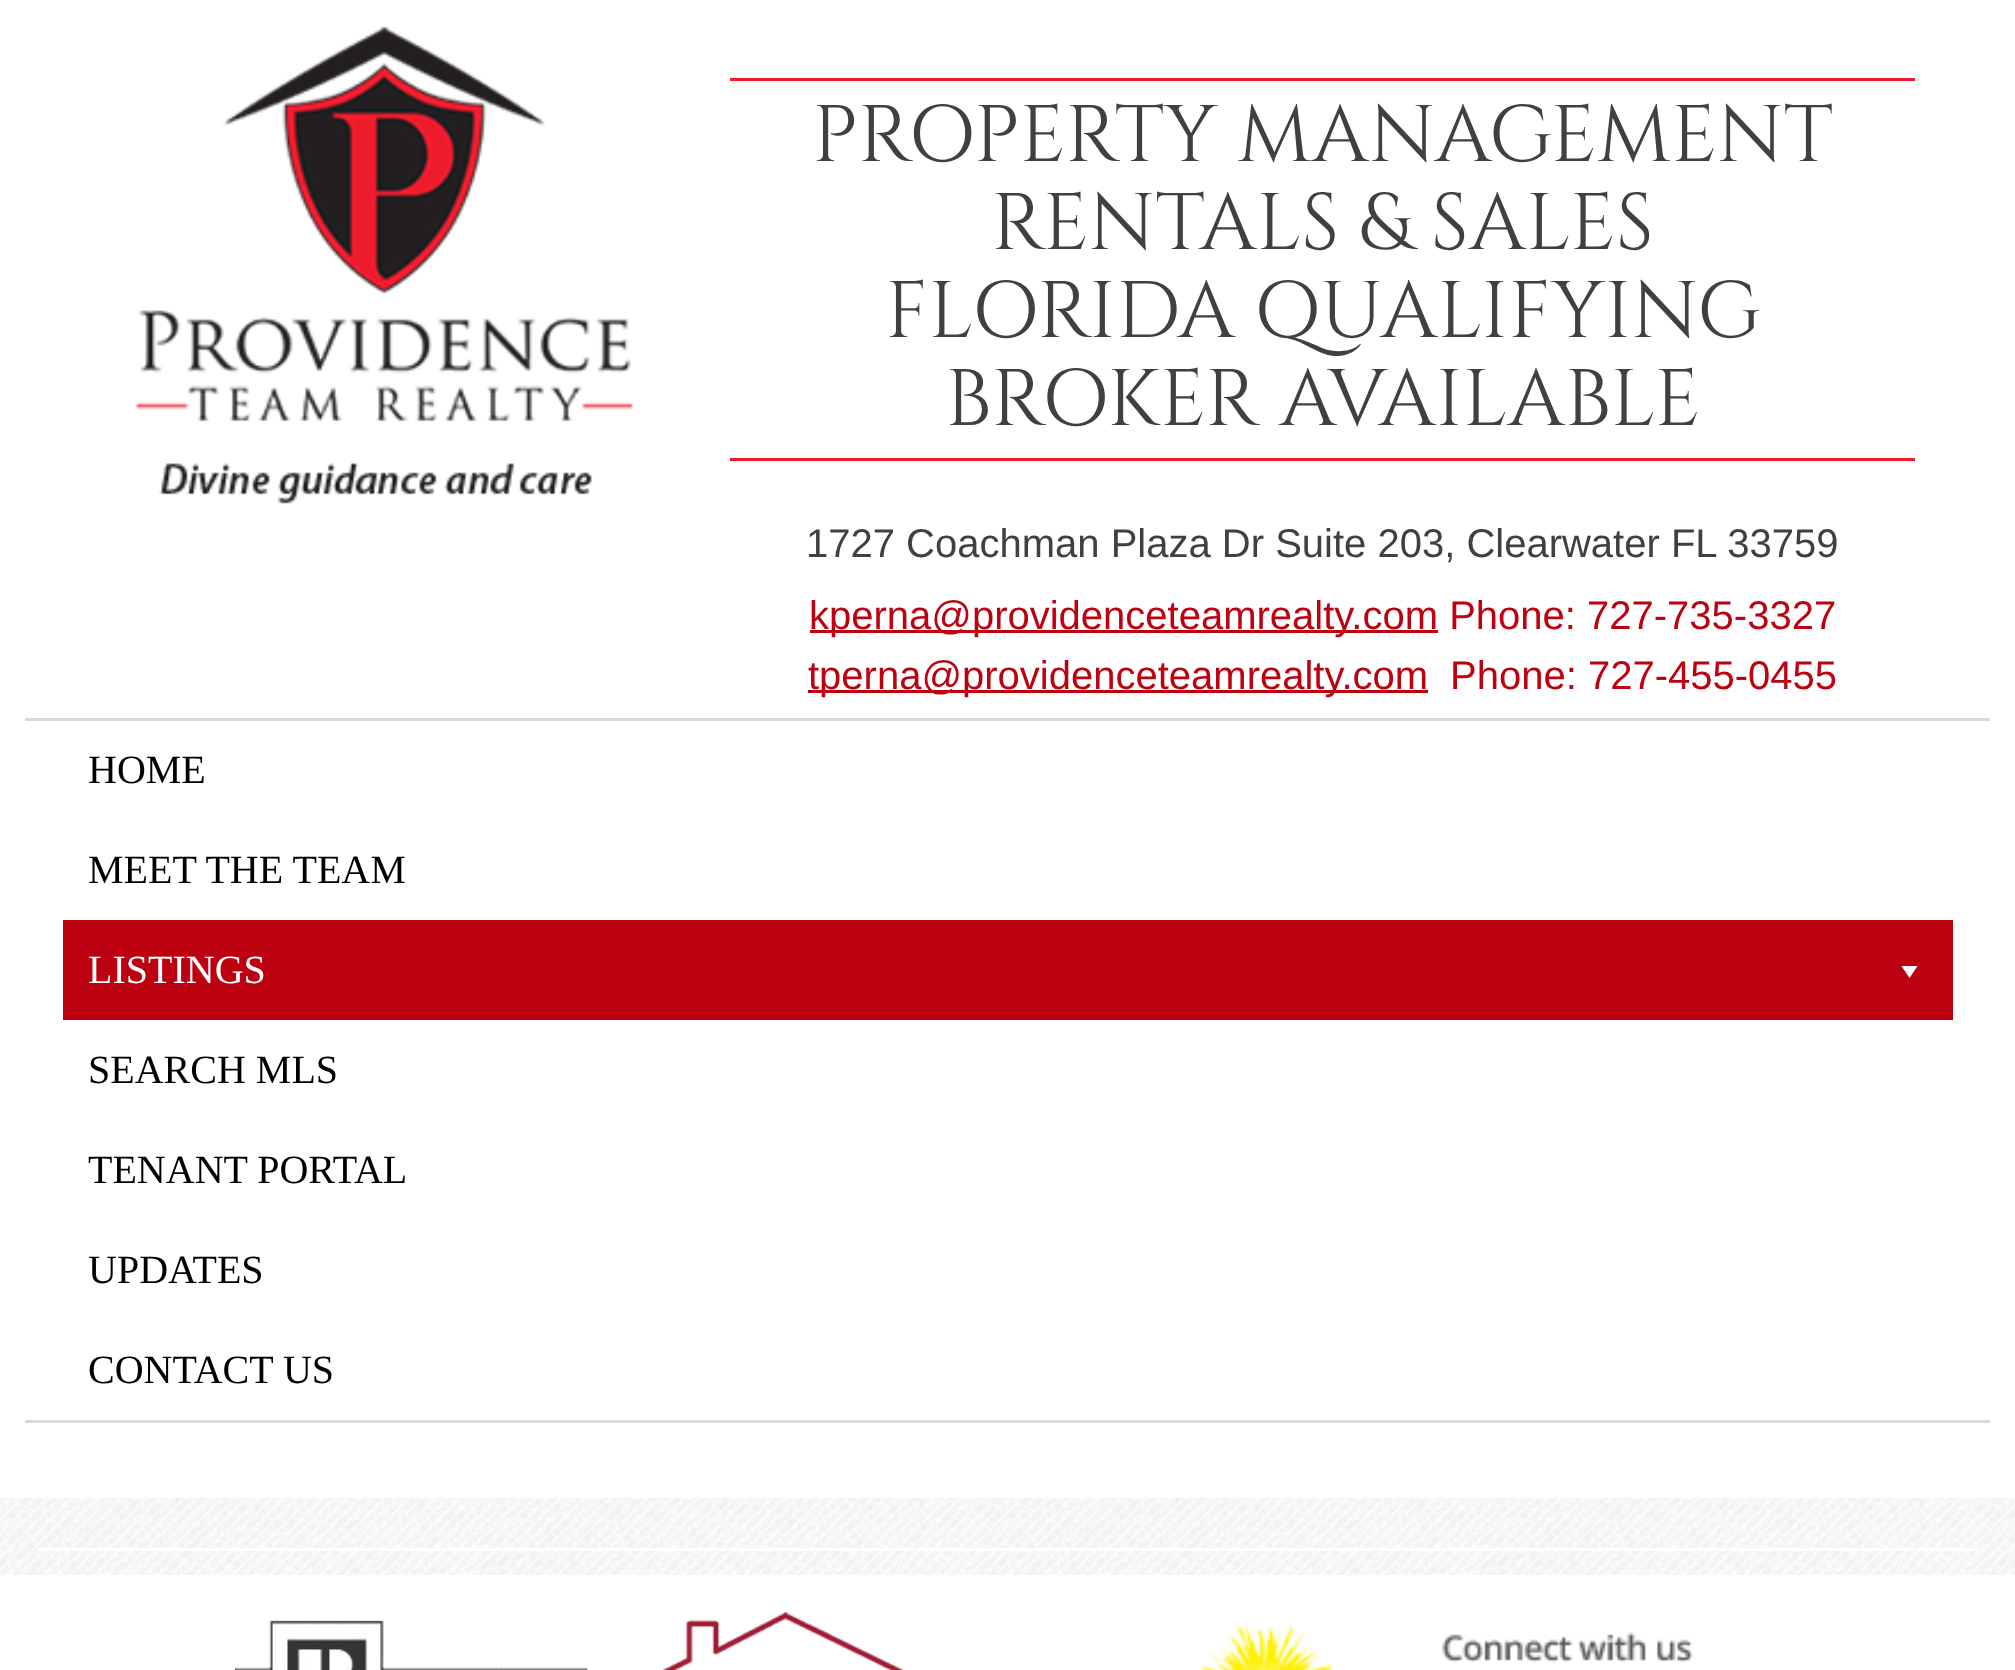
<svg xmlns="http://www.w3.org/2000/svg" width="2015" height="1670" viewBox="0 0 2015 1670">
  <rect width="100%" height="100%" fill="#ffffff"/>
  <image x="0" y="1498" width="2015" height="77" href="img1.png"/>
  <image x="136" y="26" width="497" height="478" href="img2.png"/>
  <rect x="730" y="78" width="1185" height="3" fill="#ec1c2d"/>
  <rect x="730" y="458" width="1185" height="3" fill="#ec1c2d"/>
  <text x="812" y="161" font-family="Cinzel" font-size="80" fill="#404040">PROPERTY MANAGEMENT</text>
  <text x="991" y="249" font-family="Cinzel" font-size="80" fill="#404040">RENTALS &amp; SALES</text>
  <text x="885" y="337" font-family="Cinzel" font-size="80" fill="#404040">FLORIDA QUALIFYING</text>
  <text x="945" y="425" font-family="Cinzel" font-size="80" fill="#404040">BROKER AVAILABLE</text>
  <text x="806" y="557" font-family="Liberation Sans" font-size="40" fill="#404040">1727 Coachman Plaza Dr Suite 203, Clearwater FL 33759</text>
  <rect x="810" y="630" width="628" height="3" fill="#bc0110"/>
  <text x="809" y="629" font-family="Liberation Sans" font-size="40" fill="#bc0110">kperna@providenceteamrealty.com Phone: 727-735-3327</text>
  <rect x="808" y="690" width="620" height="3" fill="#bc0110"/>
  <text x="808" y="689" font-family="Liberation Sans" font-size="40" fill="#bc0110">tperna@providenceteamrealty.com</text>
  <text x="1450" y="689" font-family="Liberation Sans" font-size="40" fill="#bc0110">Phone: 727-455-0455</text>
  <rect x="25" y="718" width="1965" height="3" fill="#d9d9d9"/>
  <rect x="25" y="1420" width="1965" height="3" fill="#d9d9d9"/>
  <text x="88" y="783" font-family="Liberation Serif" font-size="40" fill="#000000">HOME</text>
  <text x="88" y="883" font-family="Liberation Serif" font-size="40" fill="#000000">MEET THE TEAM</text>
  <rect x="63" y="920" width="1890" height="100" fill="#bc0110"/>
  <text x="88" y="983" font-family="Liberation Serif" font-size="40" fill="#ffffff">LISTINGS</text>
  <path d="M1917.5 966L1909.5 978L1901.5 966Z" fill="#ffffff"/>
  <text x="88" y="1083" font-family="Liberation Serif" font-size="40" fill="#000000">SEARCH MLS</text>
  <text x="88" y="1183" font-family="Liberation Serif" font-size="40" fill="#000000">TENANT PORTAL</text>
  <text x="88" y="1283" font-family="Liberation Serif" font-size="40" fill="#000000">UPDATES</text>
  <text x="88" y="1383" font-family="Liberation Serif" font-size="40" fill="#000000">CONTACT US</text>
  <rect x="38" y="1548" width="1940" height="3" fill="#ffffff"/>
  <image x="235" y="1620" width="353" height="50" href="img3.png"/>
  <image x="662" y="1612" width="242" height="58" href="img4.png"/>
  <image x="1199" y="1623" width="135" height="47" href="img5.png"/>
  <image x="1441" y="1632" width="252" height="31" href="img6.png"/>
</svg>
